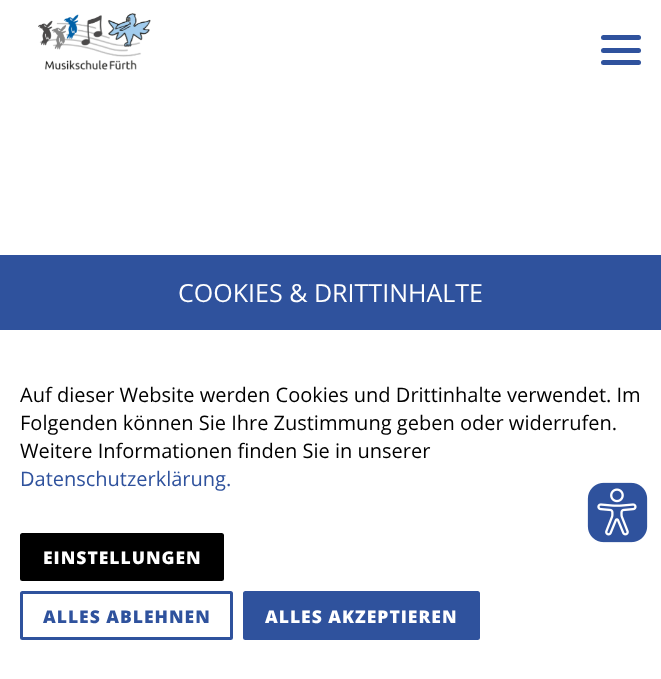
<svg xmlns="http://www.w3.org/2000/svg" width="661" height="679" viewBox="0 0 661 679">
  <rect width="100%" height="100%" fill="#ffffff"/>
  <image x="38" y="13" width="113" height="57" href="img1.png"/>
  <rect x="601" y="35" width="40" height="5" rx="2.5" fill="#2f529d"/>
  <rect x="601" y="48" width="40" height="5" rx="2.5" fill="#2f529d"/>
  <rect x="601" y="60" width="40" height="5" rx="2.5" fill="#2f529d"/>
  <rect x="0" y="255" width="661" height="75" fill="#2f529d"/>
  <text x="178" y="302" font-family="Open Sans" font-size="25" fill="#ffffff">COOKIES &amp; DRITTINHALTE</text>
  <text x="20" y="402" font-family="Open Sans" font-size="20" fill="#000000">Auf dieser Website werden Cookies und Drittinhalte verwendet. Im</text>
  <text x="20" y="430" font-family="Open Sans" font-size="20" fill="#000000">Folgenden können Sie Ihre Zustimmung geben oder widerrufen.</text>
  <text x="20" y="458" font-family="Open Sans" font-size="20" fill="#000000">Weitere Informationen finden Sie in unserer</text>
  <text x="20" y="486" font-family="Open Sans" font-size="20" fill="#2f529d">Datenschutzerklärung.</text>
  <rect x="21.5" y="534.5" width="201" height="45" rx="1" fill="#000000" stroke="#000000" stroke-width="3"/>
  <text x="43" y="564" font-family="Open Sans" font-size="17.5" font-weight="800" letter-spacing="1" fill="#ffffff">EINSTELLUNGEN</text>
  <rect x="21.5" y="592.5" width="210" height="46" rx="1" fill="none" stroke="#2f529d" stroke-width="3"/>
  <text x="43" y="623" font-family="Open Sans" font-size="17.5" font-weight="800" letter-spacing="1" fill="#2f529d">ALLES ABLEHNEN</text>
  <rect x="244.5" y="592.5" width="234" height="46" rx="1" fill="#2f529d" stroke="#2f529d" stroke-width="3"/>
  <text x="265" y="623" font-family="Open Sans" font-size="17.5" font-weight="800" letter-spacing="1" fill="#ffffff">ALLES AKZEPTIEREN</text>
  <image x="587" y="482" width="61" height="61" href="img2.png"/>
</svg>
